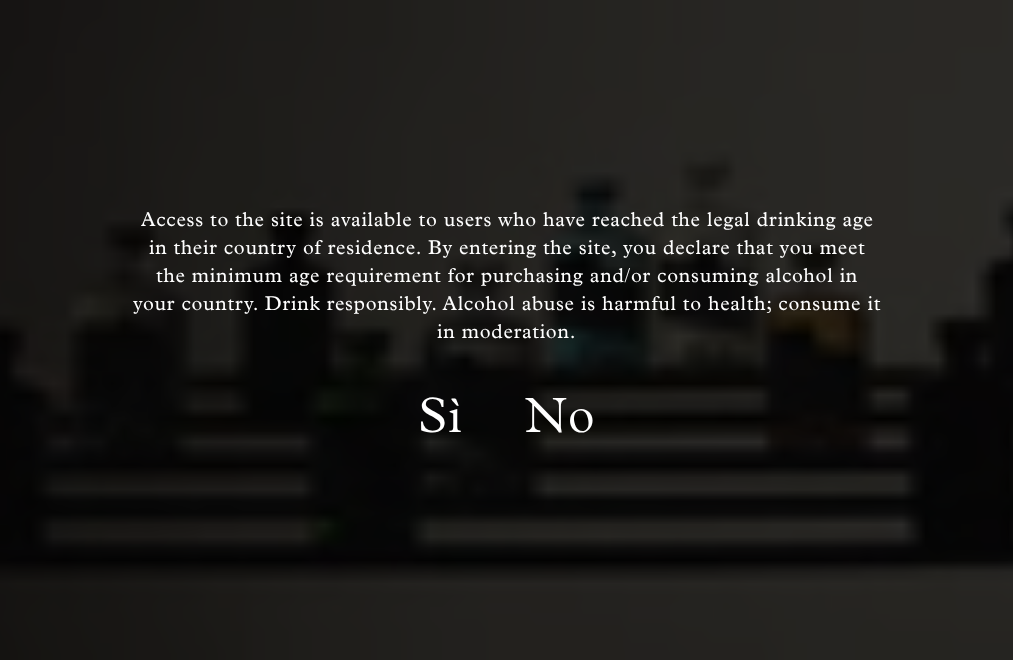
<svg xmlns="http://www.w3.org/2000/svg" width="1013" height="660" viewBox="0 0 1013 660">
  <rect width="100%" height="100%" fill="#ffffff"/>
  <image x="0" y="0" width="1013" height="660" href="img1.png"/>
  <text x="141" y="226" font-family="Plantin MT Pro" font-size="20" letter-spacing="0.75" fill="#ffffff">Access to the site is available to users who have reached the legal drinking age</text>
  <text x="149" y="254" font-family="Plantin MT Pro" font-size="20" letter-spacing="0.75" fill="#ffffff">in their country of residence. By entering the site, you declare that you meet</text>
  <text x="156" y="282" font-family="Plantin MT Pro" font-size="20" letter-spacing="0.75" fill="#ffffff">the minimum age requirement for purchasing and/or consuming alcohol in</text>
  <text x="133" y="310" font-family="Plantin MT Pro" font-size="20" letter-spacing="0.75" fill="#ffffff">your country. Drink responsibly. Alcohol abuse is harmful to health; consume it</text>
  <text x="437" y="338" font-family="Plantin MT Pro" font-size="20" letter-spacing="0.75" fill="#ffffff">in moderation.</text>
  <text x="418" y="432" font-family="Plantin MT Pro" font-size="50" font-weight="300" letter-spacing="0.75" fill="#ffffff">Sì</text>
  <text x="525" y="432" font-family="Plantin MT Pro" font-size="50" font-weight="300" letter-spacing="0.75" fill="#ffffff">No</text>
</svg>
